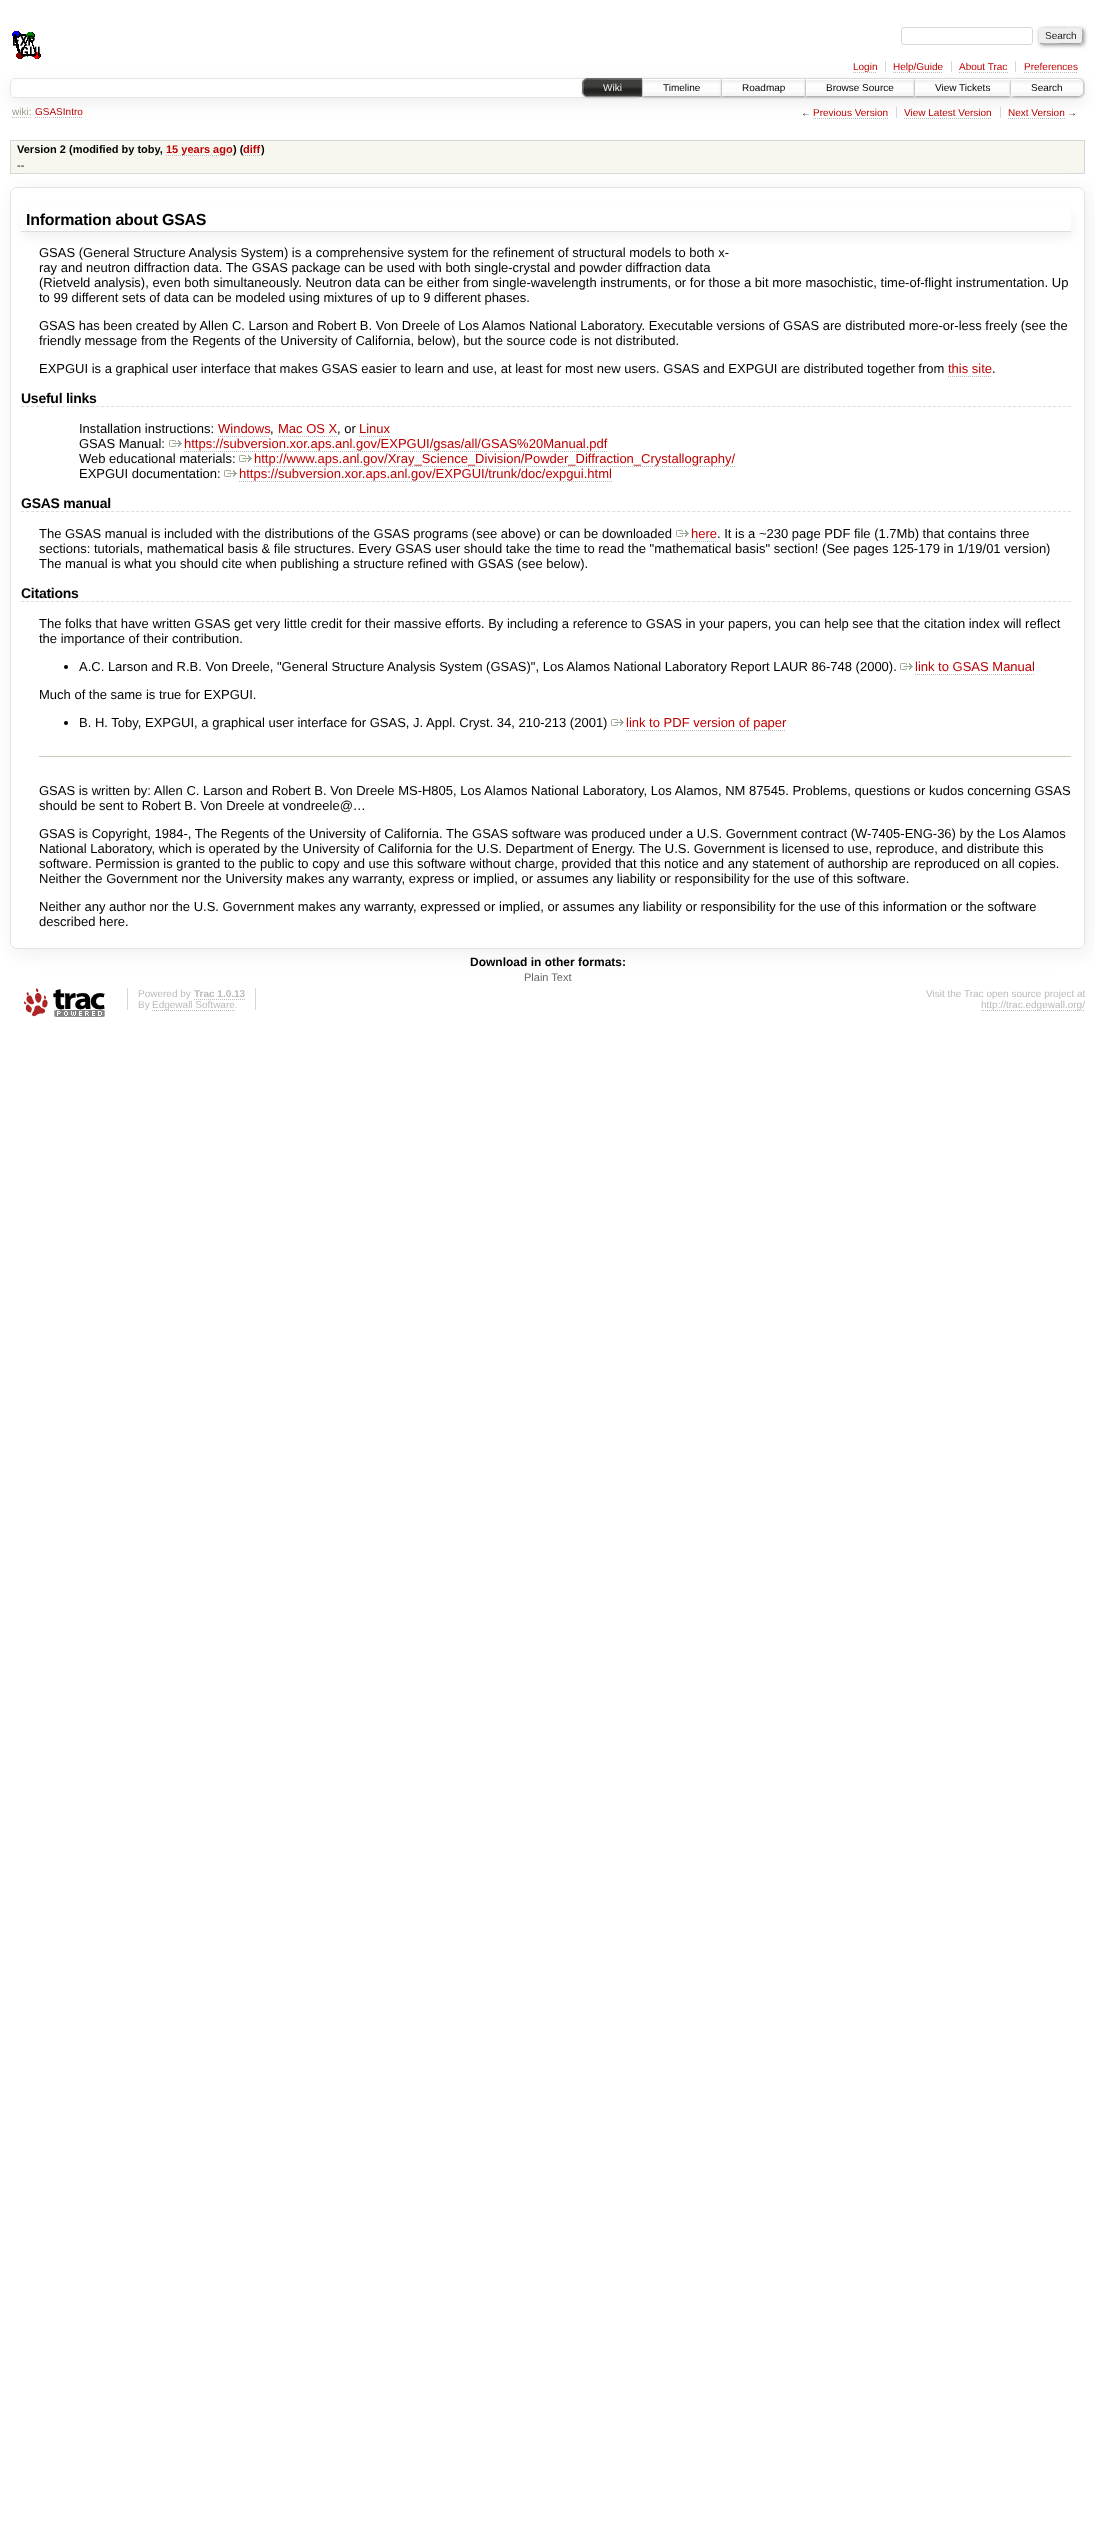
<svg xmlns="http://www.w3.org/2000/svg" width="1095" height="2542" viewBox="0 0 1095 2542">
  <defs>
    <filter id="blur1" x="-50%" y="-200%" width="200%" height="500%"><feGaussianBlur stdDeviation="2"/></filter>
    <clipPath id="clip1"><path d="M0 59H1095V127H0ZM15 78H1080C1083 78 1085 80 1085 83V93C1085 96 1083 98 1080 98H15C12 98 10 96 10 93V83C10 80 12 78 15 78Z" clip-rule="evenodd"/></clipPath>
    <filter id="blur2" x="-50%" y="-200%" width="200%" height="500%"><feGaussianBlur stdDeviation="7.5"/></filter>
    <filter id="blur3" x="-50%" y="-200%" width="200%" height="500%"><feGaussianBlur stdDeviation="1.5"/></filter>
    <clipPath id="clip2"><path d="M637 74H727V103H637ZM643 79H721V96H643Z" clip-rule="evenodd"/></clipPath>
    <clipPath id="clip3"><path d="M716 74H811V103H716ZM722 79H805V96H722Z" clip-rule="evenodd"/></clipPath>
    <clipPath id="clip4"><path d="M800 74H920V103H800ZM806 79H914V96H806Z" clip-rule="evenodd"/></clipPath>
    <clipPath id="clip5"><path d="M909 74H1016V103H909ZM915 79H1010V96H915Z" clip-rule="evenodd"/></clipPath>
    <clipPath id="clip6"><path d="M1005 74H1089V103H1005ZM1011 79H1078C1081 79 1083 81 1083 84V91C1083 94 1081 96 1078 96H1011Z" clip-rule="evenodd"/></clipPath>
    <clipPath id="clip7"><path d="M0 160H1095V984H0ZM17 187H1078C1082 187 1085 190 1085 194V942C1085 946 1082 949 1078 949H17C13 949 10 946 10 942V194C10 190 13 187 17 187Z" clip-rule="evenodd"/></clipPath>
    <filter id="blur4" x="-50%" y="-200%" width="200%" height="500%"><feGaussianBlur stdDeviation="10"/></filter>
    <clipPath id="clip8"><path d="M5 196H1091V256H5ZM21 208H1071V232H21Z" clip-rule="evenodd"/></clipPath>
    <filter id="blur5" x="-50%" y="-200%" width="200%" height="500%"><feGaussianBlur stdDeviation="5.5"/></filter>
  </defs>
  <rect width="100%" height="100%" fill="#ffffff"/>
  <image x="12" y="31" width="29" height="28" href="img1.png"/>
  <rect x="901.5" y="27.5" width="131" height="17" rx="2.5" fill="none" stroke="#d7d7d7"/>
  <rect x="1040" y="29" width="44" height="16" rx="3" fill="#888888" filter="url(#blur1)"/>
  <rect x="1039" y="28" width="44" height="16" rx="3" fill="#eeeeee"/>
  <path d="M1082 29C1083.5 31 1082.5 34 1082.5 36C1082.5 44.5 1083 43.5 1073.5 43.5H1061C1058 43.5 1042 44.5 1040 43" fill="none" stroke="#9f9f9f"/>
  <path d="M1040 43C1038.5 41 1039.5 38 1039.5 36C1039.5 27.5 1039 28.5 1048.5 28.5H1061C1064 28.5 1080 27.5 1082 29" fill="none" stroke="#eeeeee"/>
  <text x="1045" y="39" font-family="Liberation Sans" font-size="10" fill="#222222">Search</text>
  <g clip-path="url(#clip1)">
    <rect x="10" y="83" width="1075" height="20" rx="5" fill="#eeeeee" filter="url(#blur2)"/>
  </g>
  <rect x="885" y="61" width="1" height="11" fill="#d7d7d7"/>
  <path d="M853 72.5H877" fill="none" stroke="#bbbbbb" stroke-dasharray="1 1"/>
  <text x="853" y="70" font-family="Liberation Sans" font-size="10" fill="#bb0000">Login</text>
  <rect x="951" y="61" width="1" height="11" fill="#d7d7d7"/>
  <path d="M893 72.5H943" fill="none" stroke="#bbbbbb" stroke-dasharray="1 1"/>
  <text x="893" y="70" font-family="Liberation Sans" font-size="10" fill="#bb0000">Help/Guide</text>
  <rect x="1015" y="61" width="1" height="11" fill="#d7d7d7"/>
  <text x="959" y="70" font-family="Liberation Sans" font-size="10" fill="#bb0000">About Trac</text>
  <path d="M959 72.5H1008" fill="none" stroke="#bbbbbb" stroke-dasharray="1 1"/>
  <text x="1024" y="70" font-family="Liberation Sans" font-size="10" fill="#bb0000">Preferences</text>
  <path d="M1024 72.5H1078" fill="none" stroke="#bbbbbb" stroke-dasharray="1 1"/>
  <rect x="10.5" y="78.5" width="1074" height="19" rx="4.5" fill="none" stroke="#e4e4e4"/>
  <path d="M587 78H643V97H587C584 97 582 95 582 92V83C582 80 584 78 587 78Z" fill="#ffffff"/>
  <image x="582" y="80" width="6" height="17" href="img2.png"/>
  <path d="M587 78.5H642.5V96.5H587C584.5 96.5 582.5 94.5 582.5 92V83C582.5 80.5 584.5 78.5 587 78.5Z" fill="none" stroke="#666666"/>
  <rect x="583" y="80" width="59" height="17" rx="5" fill="#999999" filter="url(#blur3)"/>
  <path d="M588 79H642V96H588C585 96 583 94 583 91V84C583 81 585 79 588 79Z" fill="#000000"/>
  <image x="583" y="79" width="59" height="17" href="img3.png"/>
  <text x="603" y="91" font-family="Liberation Sans" font-size="10" fill="#eeeeee">Wiki</text>
  <rect x="643" y="81" width="2" height="15" fill="#ffffff"/>
  <image x="643" y="80" width="78" height="16" href="img4.png"/>
  <rect x="642.5" y="78.5" width="79" height="18" fill="none" stroke="#e4e4e4"/>
  <g clip-path="url(#clip2)">
    <rect x="643" y="80" width="78" height="17" fill="#999999" filter="url(#blur3)"/>
  </g>
  <text x="663" y="91" font-family="Liberation Sans" font-size="10" fill="#000000">Timeline</text>
  <rect x="722" y="79" width="2" height="17" fill="#ffffff"/>
  <image x="722" y="80" width="83" height="16" href="img5.png"/>
  <rect x="721.5" y="78.5" width="84" height="18" fill="none" stroke="#e4e4e4"/>
  <g clip-path="url(#clip3)">
    <rect x="722" y="80" width="83" height="17" fill="#999999" filter="url(#blur3)"/>
  </g>
  <text x="742" y="91" font-family="Liberation Sans" font-size="10" fill="#000000">Roadmap</text>
  <rect x="806" y="79" width="2" height="17" fill="#ffffff"/>
  <image x="806" y="80" width="108" height="16" href="img6.png"/>
  <rect x="805.5" y="78.5" width="109" height="18" fill="none" stroke="#e4e4e4"/>
  <g clip-path="url(#clip4)">
    <rect x="806" y="80" width="108" height="17" fill="#999999" filter="url(#blur3)"/>
  </g>
  <text x="826" y="91" font-family="Liberation Sans" font-size="10" fill="#000000">Browse Source</text>
  <rect x="915" y="79" width="2" height="17" fill="#ffffff"/>
  <image x="915" y="80" width="95" height="16" href="img7.png"/>
  <rect x="914.5" y="78.5" width="96" height="18" fill="none" stroke="#e4e4e4"/>
  <g clip-path="url(#clip5)">
    <rect x="915" y="80" width="95" height="17" fill="#999999" filter="url(#blur3)"/>
  </g>
  <text x="935" y="91" font-family="Liberation Sans" font-size="10" fill="#000000">View Tickets</text>
  <path d="M1010 78H1079C1082 78 1084 80 1084 83V92C1084 95 1082 97 1079 97H1010Z" fill="#ffffff"/>
  <image x="1011" y="80" width="73" height="17" href="img8.png"/>
  <path d="M1010.5 78.5H1079C1081.5 78.5 1083.5 80.5 1083.5 83V92C1083.5 94.5 1081.5 96.5 1079 96.5H1010.5Z" fill="none" stroke="#e4e4e4"/>
  <g clip-path="url(#clip6)">
    <rect x="1011" y="80" width="72" height="17" rx="5" fill="#999999" filter="url(#blur3)"/>
  </g>
  <text x="1031" y="91" font-family="Liberation Sans" font-size="10" fill="#000000">Search</text>
  <path d="M12 117.5H31" fill="none" stroke="#bbbbbb" stroke-dasharray="1 1"/>
  <text x="12" y="115" font-family="Liberation Sans" font-size="10" fill="#999988">wiki:</text>
  <path d="M35 117.5H83" fill="none" stroke="#bbbbbb" stroke-dasharray="1 1"/>
  <text x="35" y="115" font-family="Liberation Sans" font-size="10" fill="#bb0000">GSASIntro</text>
  <rect x="896" y="107" width="1" height="11" fill="#d7d7d7"/>
  <text x="801" y="116" font-family="Liberation Sans" font-size="10" fill="#000000">←</text>
  <path d="M813 118.5H888" fill="none" stroke="#bbbbbb" stroke-dasharray="1 1"/>
  <text x="813" y="116" font-family="Liberation Sans" font-size="10" fill="#bb0000">Previous Version</text>
  <rect x="1000" y="107" width="1" height="11" fill="#d7d7d7"/>
  <text x="904" y="116" font-family="Liberation Sans" font-size="10" fill="#bb0000">View Latest Version</text>
  <path d="M904 118.5H992" fill="none" stroke="#bbbbbb" stroke-dasharray="1 1"/>
  <text x="1008" y="116" font-family="Liberation Sans" font-size="10" fill="#bb0000">Next Version</text>
  <path d="M1008 118.5H1065" fill="none" stroke="#bbbbbb" stroke-dasharray="1 1"/>
  <text x="1067" y="116" font-family="Liberation Sans" font-size="10" fill="#000000">→</text>
  <rect x="11" y="141" width="1073" height="32" fill="#f7f7f0"/>
  <rect x="10" y="140" width="1075" height="1" fill="#d7d7d7"/>
  <rect x="1084" y="140" width="1" height="34" fill="#d7d7d7"/>
  <rect x="10" y="173" width="1075" height="1" fill="#d7d7d7"/>
  <rect x="10" y="140" width="1" height="34" fill="#d7d7d7"/>
  <text x="17" y="153" font-family="Liberation Sans" font-size="11" font-weight="bold" fill="#000000">Version 2 (modified by toby,</text>
  <path d="M166 155.5H233" fill="none" stroke="#bbbbbb" stroke-dasharray="1 1"/>
  <text x="166" y="153" font-family="Liberation Sans" font-size="11" font-weight="bold" fill="#bb0000">15 years ago</text>
  <text x="233" y="153" font-family="Liberation Sans" font-size="11" font-weight="bold" fill="#000000">) (</text>
  <text x="243" y="153" font-family="Liberation Sans" font-size="11" font-weight="bold" fill="#bb0000">diff</text>
  <path d="M243 155.5H261" fill="none" stroke="#bbbbbb" stroke-dasharray="1 1"/>
  <text x="261" y="153" font-family="Liberation Sans" font-size="11" font-weight="bold" fill="#000000">)</text>
  <g clip-path="url(#clip7)">
    <rect x="13" y="191" width="1075" height="762" rx="7" fill="#eeeeee" filter="url(#blur4)"/>
  </g>
  <text x="17" y="169" font-family="Liberation Sans" font-size="11" fill="#000000">--</text>
  <rect x="10.5" y="187.5" width="1074" height="761" rx="6.5" fill="none" stroke="#e4e4e4"/>
  <g clip-path="url(#clip8)">
    <rect x="23" y="214" width="1050" height="24" fill="#f2f2f2" filter="url(#blur5)"/>
  </g>
  <rect x="21" y="231" width="1050" height="1" fill="#dddddd"/>
  <text x="26" y="225" font-family="Liberation Sans" font-size="16" font-weight="bold" letter-spacing="-0.25" fill="#000000">Information about GSAS</text>
  <text x="39" y="257" font-family="Liberation Sans" font-size="13" fill="#000000">GSAS (General Structure Analysis System) is a comprehensive system for the refinement of structural models to both x-</text>
  <text x="39" y="272" font-family="Liberation Sans" font-size="13" fill="#000000">ray and neutron diffraction data. The GSAS package can be used with both single-crystal and powder diffraction data</text>
  <text x="39" y="287" font-family="Liberation Sans" font-size="13" fill="#000000">(Rietveld analysis), even both simultaneously. Neutron data can be either from single-wavelength instruments, or for those a bit more masochistic, time-of-flight instrumentation. Up</text>
  <text x="39" y="302" font-family="Liberation Sans" font-size="13" fill="#000000">to 99 different sets of data can be modeled using mixtures of up to 9 different phases.</text>
  <text x="39" y="330" font-family="Liberation Sans" font-size="13" fill="#000000">GSAS has been created by Allen C. Larson and Robert B. Von Dreele of Los Alamos National Laboratory. Executable versions of GSAS are distributed more-or-less freely (see the</text>
  <text x="39" y="345" font-family="Liberation Sans" font-size="13" fill="#000000">friendly message from the Regents of the University of California, below), but the source code is not distributed.</text>
  <text x="39" y="373" font-family="Liberation Sans" font-size="13" fill="#000000">EXPGUI is a graphical user interface that makes GSAS easier to learn and use, at least for most new users. GSAS and EXPGUI are distributed together from</text>
  <text x="948" y="373" font-family="Liberation Sans" font-size="13" fill="#bb0000">this site</text>
  <path d="M948 376.5H992" fill="none" stroke="#bbbbbb" stroke-dasharray="1 1"/>
  <text x="992" y="373" font-family="Liberation Sans" font-size="13" fill="#000000">.</text>
  <path d="M21 406.5H1071" fill="none" stroke="#dddddd" stroke-dasharray="3 2.01"/>
  <text x="21" y="403" font-family="Liberation Sans" font-size="14" font-weight="bold" letter-spacing="-0.25" fill="#000000">Useful links</text>
  <text x="79" y="433" font-family="Liberation Sans" font-size="13" fill="#000000">Installation instructions:</text>
  <text x="218" y="433" font-family="Liberation Sans" font-size="13" fill="#bb0000">Windows</text>
  <path d="M218 436.5H270" fill="none" stroke="#bbbbbb" stroke-dasharray="1 1"/>
  <text x="270" y="433" font-family="Liberation Sans" font-size="13" fill="#000000">,</text>
  <text x="278" y="433" font-family="Liberation Sans" font-size="13" fill="#bb0000">Mac OS X</text>
  <path d="M278 436.5H337" fill="none" stroke="#bbbbbb" stroke-dasharray="1 1"/>
  <text x="337" y="433" font-family="Liberation Sans" font-size="13" fill="#000000">, or</text>
  <text x="359" y="433" font-family="Liberation Sans" font-size="13" fill="#bb0000">Linux</text>
  <path d="M359 436.5H390" fill="none" stroke="#bbbbbb" stroke-dasharray="1 1"/>
  <text x="79" y="448" font-family="Liberation Sans" font-size="13" fill="#000000">GSAS Manual:</text>
  <image x="169" y="440" width="13" height="7" href="img9.png"/>
  <text x="184" y="448" font-family="Liberation Sans" font-size="13" fill="#bb0000">https://subversion.xor.aps.anl.gov/EXPGUI/gsas/all/GSAS%20Manual.pdf</text>
  <path d="M184 451.5H607" fill="none" stroke="#bbbbbb" stroke-dasharray="1 1"/>
  <text x="79" y="463" font-family="Liberation Sans" font-size="13" fill="#000000">Web educational materials:</text>
  <image x="239" y="455" width="13" height="7" href="img9.png"/>
  <text x="254" y="463" font-family="Liberation Sans" font-size="13" fill="#bb0000">http://www.aps.anl.gov/Xray_Science_Division/Powder_Diffraction_Crystallography/</text>
  <path d="M254 466.5H735" fill="none" stroke="#bbbbbb" stroke-dasharray="1 1"/>
  <text x="79" y="478" font-family="Liberation Sans" font-size="13" fill="#000000">EXPGUI documentation:</text>
  <image x="224" y="470" width="13" height="7" href="img9.png"/>
  <text x="239" y="478" font-family="Liberation Sans" font-size="13" fill="#bb0000">https://subversion.xor.aps.anl.gov/EXPGUI/trunk/doc/expgui.html</text>
  <path d="M239 481.5H612" fill="none" stroke="#bbbbbb" stroke-dasharray="1 1"/>
  <path d="M21 511.5H1071" fill="none" stroke="#dddddd" stroke-dasharray="3 2.01"/>
  <text x="21" y="508" font-family="Liberation Sans" font-size="14" font-weight="bold" letter-spacing="-0.25" fill="#000000">GSAS manual</text>
  <text x="39" y="538" font-family="Liberation Sans" font-size="13" fill="#000000">The GSAS manual is included with the distributions of the GSAS programs (see above) or can be downloaded</text>
  <image x="676" y="530" width="13" height="7" href="img9.png"/>
  <text x="691" y="538" font-family="Liberation Sans" font-size="13" fill="#bb0000">here</text>
  <path d="M691 541.5H717" fill="none" stroke="#bbbbbb" stroke-dasharray="1 1"/>
  <text x="717" y="538" font-family="Liberation Sans" font-size="13" fill="#000000">. It is a ~230 page PDF file (1.7Mb) that contains three</text>
  <text x="39" y="553" font-family="Liberation Sans" font-size="13" fill="#000000">sections: tutorials, mathematical basis &amp; file structures. Every GSAS user should take the time to read the "mathematical basis" section! (See pages 125-179 in 1/19/01 version)</text>
  <text x="39" y="568" font-family="Liberation Sans" font-size="13" fill="#000000">The manual is what you should cite when publishing a structure refined with GSAS (see below).</text>
  <path d="M21 601.5H1071" fill="none" stroke="#dddddd" stroke-dasharray="3 2.01"/>
  <text x="21" y="598" font-family="Liberation Sans" font-size="14" font-weight="bold" letter-spacing="-0.25" fill="#000000">Citations</text>
  <text x="39" y="628" font-family="Liberation Sans" font-size="13" fill="#000000">The folks that have written GSAS get very little credit for their massive efforts. By including a reference to GSAS in your papers, you can help see that the citation index will reflect</text>
  <text x="39" y="643" font-family="Liberation Sans" font-size="13" fill="#000000">the importance of their contribution.</text>
  <circle cx="66" cy="667" r="2" fill="#000000"/>
  <text x="79" y="671" font-family="Liberation Sans" font-size="13" fill="#000000">A.C. Larson and R.B. Von Dreele, "General Structure Analysis System (GSAS)", Los Alamos National Laboratory Report LAUR 86-748 (2000).</text>
  <image x="900" y="663" width="13" height="7" href="img9.png"/>
  <text x="915" y="671" font-family="Liberation Sans" font-size="13" fill="#bb0000">link to GSAS Manual</text>
  <path d="M915 674.5H1035" fill="none" stroke="#bbbbbb" stroke-dasharray="1 1"/>
  <text x="39" y="699" font-family="Liberation Sans" font-size="13" fill="#000000">Much of the same is true for EXPGUI.</text>
  <circle cx="66" cy="723" r="2" fill="#000000"/>
  <text x="79" y="727" font-family="Liberation Sans" font-size="13" fill="#000000">B. H. Toby, EXPGUI, a graphical user interface for GSAS, J. Appl. Cryst. 34, 210-213 (2001)</text>
  <image x="611" y="719" width="13" height="7" href="img9.png"/>
  <text x="626" y="727" font-family="Liberation Sans" font-size="13" fill="#bb0000">link to PDF version of paper</text>
  <path d="M626 730.5H786" fill="none" stroke="#bbbbbb" stroke-dasharray="1 1"/>
  <rect x="39" y="756" width="1032" height="1" fill="#ccccbb"/>
  <text x="39" y="795" font-family="Liberation Sans" font-size="13" fill="#000000">GSAS is written by: Allen C. Larson and Robert B. Von Dreele MS-H805, Los Alamos National Laboratory, Los Alamos, NM 87545. Problems, questions or kudos concerning GSAS</text>
  <text x="39" y="810" font-family="Liberation Sans" font-size="13" fill="#000000">should be sent to Robert B. Von Dreele at vondreele@…</text>
  <text x="39" y="838" font-family="Liberation Sans" font-size="13" fill="#000000">GSAS is Copyright, 1984-, The Regents of the University of California. The GSAS software was produced under a U.S. Government contract (W-7405-ENG-36) by the Los Alamos</text>
  <text x="39" y="853" font-family="Liberation Sans" font-size="13" fill="#000000">National Laboratory, which is operated by the University of California for the U.S. Department of Energy. The U.S. Government is licensed to use, reproduce, and distribute this</text>
  <text x="39" y="868" font-family="Liberation Sans" font-size="13" fill="#000000">software. Permission is granted to the public to copy and use this software without charge, provided that this notice and any statement of authorship are reproduced on all copies.</text>
  <text x="39" y="883" font-family="Liberation Sans" font-size="13" fill="#000000">Neither the Government nor the University makes any warranty, express or implied, or assumes any liability or responsibility for the use of this software.</text>
  <text x="39" y="911" font-family="Liberation Sans" font-size="13" fill="#000000">Neither any author nor the U.S. Government makes any warranty, expressed or implied, or assumes any liability or responsibility for the use of this information or the software</text>
  <text x="39" y="926" font-family="Liberation Sans" font-size="13" fill="#000000">described here.</text>
  <text x="470" y="966" font-family="Liberation Sans" font-size="12" font-weight="bold" fill="#000000">Download in other formats:</text>
  <text x="524" y="981" font-family="Liberation Sans" font-size="11" fill="#666666">Plain Text</text>
  <image x="24" y="988" width="81" height="29" href="img10.png"/>
  <rect x="255" y="988" width="1" height="22" fill="#d7d7d7"/>
  <rect x="127" y="988" width="1" height="22" fill="#d7d7d7"/>
  <text x="138" y="997" font-family="Liberation Sans" font-size="10" fill="#bbbbbb">Powered by</text>
  <text x="194" y="997" font-family="Liberation Sans" font-size="10" font-weight="bold" fill="#bbbbbb">Trac 1.0.13</text>
  <path d="M194 999.5H245" fill="none" stroke="#bbbbbb" stroke-dasharray="1 1"/>
  <text x="138" y="1008" font-family="Liberation Sans" font-size="10" fill="#bbbbbb">By</text>
  <path d="M152 1010.5H235" fill="none" stroke="#bbbbbb" stroke-dasharray="1 1"/>
  <text x="152" y="1008" font-family="Liberation Sans" font-size="10" fill="#bbbbbb">Edgewall Software.</text>
  <text x="926" y="997" font-family="Liberation Sans" font-size="10" fill="#bbbbbb">Visit the Trac open source project at</text>
  <path d="M981 1010.5H1085" fill="none" stroke="#bbbbbb" stroke-dasharray="1 1"/>
  <text x="981" y="1008" font-family="Liberation Sans" font-size="10" fill="#bbbbbb">http://trac.edgewall.org/</text>
</svg>
